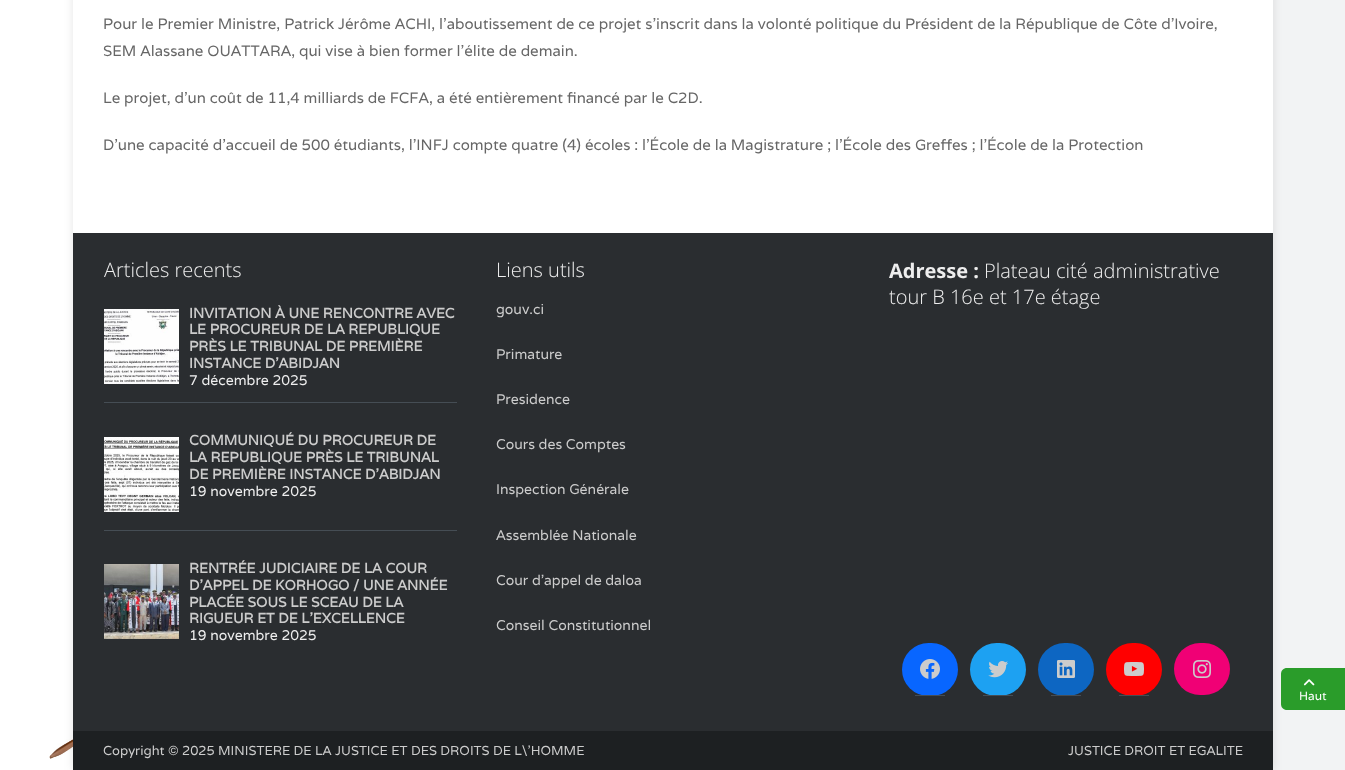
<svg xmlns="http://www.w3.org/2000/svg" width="1345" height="770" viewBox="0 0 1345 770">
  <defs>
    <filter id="blur1" x="-50%" y="-200%" width="200%" height="500%"><feGaussianBlur stdDeviation="5"/></filter>
  </defs>
  <rect width="100%" height="100%" fill="#f2f3f4"/>
  <image x="0" y="0" width="73" height="770" href="img1.png"/>
  <rect x="73" y="-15" width="1200" height="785" fill="#000000" fill-opacity="0.1" filter="url(#blur1)"/>
  <rect x="73" y="0" width="1200" height="233" fill="#ffffff"/>
  <text x="103" y="29" font-family="Varela" font-size="15" fill="#666666">Pour le Premier Ministre, Patrick Jérôme ACHI, l’aboutissement de ce projet s’inscrit dans la volonté politique du Président de la République de Côte d’Ivoire,</text>
  <text x="103" y="56" font-family="Varela" font-size="15" fill="#666666">SEM Alassane OUATTARA, qui vise à bien former l’élite de demain.</text>
  <text x="103" y="103" font-family="Varela" font-size="15" fill="#666666">Le projet, d’un coût de 11,4 milliards de FCFA, a été entièrement financé par le C2D.</text>
  <text x="103" y="150" font-family="Varela" font-size="15" fill="#666666">D’une capacité d’accueil de 500 étudiants, l’INFJ compte quatre (4) écoles : l’École de la Magistrature ; l’École des Greffes ; l’École de la Protection</text>
  <rect x="73" y="233" width="1200" height="498" fill="#2a2d30"/>
  <text x="104" y="277" font-family="Open Sans" font-size="20" font-weight="300" fill="#eeeeee">Articles recents</text>
  <rect x="104" y="402" width="353" height="1" fill="#454d54"/>
  <image x="104" y="309" width="75" height="75" href="img2.png"/>
  <text x="189" y="318" font-family="Varela" font-size="14" font-weight="bold" fill="#cccccc">INVITATION À UNE RENCONTRE AVEC</text>
  <text x="189" y="334" font-family="Varela" font-size="14" font-weight="bold" fill="#cccccc">LE PROCUREUR DE LA REPUBLIQUE</text>
  <text x="189" y="351" font-family="Varela" font-size="14" font-weight="bold" fill="#cccccc">PRÈS LE TRIBUNAL DE PREMIÈRE</text>
  <text x="189" y="368" font-family="Varela" font-size="14" font-weight="bold" fill="#cccccc">INSTANCE D’ABIDJAN</text>
  <text x="189" y="385" font-family="Varela" font-size="14" fill="#eeeeee">7 décembre 2025</text>
  <rect x="104" y="530" width="353" height="1" fill="#454d54"/>
  <image x="104" y="437" width="75" height="75" href="img3.png"/>
  <text x="189" y="445" font-family="Varela" font-size="14" font-weight="bold" fill="#cccccc">COMMUNIQUÉ DU PROCUREUR DE</text>
  <text x="189" y="462" font-family="Varela" font-size="14" font-weight="bold" fill="#cccccc">LA REPUBLIQUE PRÈS LE TRIBUNAL</text>
  <text x="189" y="479" font-family="Varela" font-size="14" font-weight="bold" fill="#cccccc">DE PREMIÈRE INSTANCE D’ABIDJAN</text>
  <text x="189" y="496" font-family="Varela" font-size="14" fill="#eeeeee">19 novembre 2025</text>
  <image x="104" y="564" width="75" height="75" href="img4.png"/>
  <text x="189" y="573" font-family="Varela" font-size="14" font-weight="bold" fill="#cccccc">RENTRÉE JUDICIAIRE DE LA COUR</text>
  <text x="189" y="590" font-family="Varela" font-size="14" font-weight="bold" fill="#cccccc">D’APPEL DE KORHOGO / UNE ANNÉE</text>
  <text x="189" y="607" font-family="Varela" font-size="14" font-weight="bold" fill="#cccccc">PLACÉE SOUS LE SCEAU DE LA</text>
  <text x="189" y="623" font-family="Varela" font-size="14" font-weight="bold" fill="#cccccc">RIGUEUR ET DE L’EXCELLENCE</text>
  <text x="189" y="640" font-family="Varela" font-size="14" fill="#eeeeee">19 novembre 2025</text>
  <text x="496" y="277" font-family="Open Sans" font-size="20" font-weight="300" fill="#eeeeee">Liens utils</text>
  <text x="496" y="314" font-family="Varela" font-size="14" fill="#cccccc">gouv.ci</text>
  <text x="496" y="359" font-family="Varela" font-size="14" fill="#cccccc">Primature</text>
  <text x="496" y="404" font-family="Varela" font-size="14" fill="#cccccc">Presidence</text>
  <text x="496" y="449" font-family="Varela" font-size="14" fill="#cccccc">Cours des Comptes</text>
  <text x="496" y="494" font-family="Varela" font-size="14" fill="#cccccc">Inspection Générale</text>
  <text x="496" y="540" font-family="Varela" font-size="14" fill="#cccccc">Assemblée Nationale</text>
  <text x="496" y="585" font-family="Varela" font-size="14" fill="#cccccc">Cour d'appel de daloa</text>
  <text x="496" y="630" font-family="Varela" font-size="14" fill="#cccccc">Conseil Constitutionnel</text>
  <text x="889" y="278" font-family="Open Sans" font-size="20" font-weight="bold" fill="#eeeeee">Adresse :</text>
  <text x="984" y="278" font-family="Open Sans" font-size="20" font-weight="300" fill="#eeeeee">Plateau cité administrative</text>
  <text x="889" y="304" font-family="Open Sans" font-size="20" font-weight="300" fill="#eeeeee">tour B 16e et 17e étage</text>
  <rect x="902" y="643" width="56" height="53" rx="26.5" fill="#0866ff"/>
  <rect x="915" y="695" width="30" height="1" fill="#454d54"/>
  <image x="920" y="659" width="20" height="20" href="img5.png"/>
  <rect x="970" y="643" width="56" height="53" rx="26.5" fill="#1da1f2"/>
  <rect x="983" y="695" width="30" height="1" fill="#454d54"/>
  <image x="988" y="661" width="20" height="17" href="img6.png"/>
  <rect x="1038" y="643" width="56" height="53" rx="26.5" fill="#0d66c2"/>
  <rect x="1051" y="695" width="30" height="1" fill="#454d54"/>
  <image x="1057" y="660" width="18" height="18" href="img7.png"/>
  <rect x="1106" y="643" width="56" height="53" rx="26.5" fill="#ff0000"/>
  <rect x="1119" y="695" width="30" height="1" fill="#454d54"/>
  <image x="1124" y="662" width="20" height="14" href="img8.png"/>
  <rect x="1174" y="643" width="56" height="52" rx="26" fill="#f00075"/>
  <image x="1193" y="660" width="18" height="18" href="img9.png"/>
  <rect x="73" y="731" width="1200" height="39" fill="#1d2022"/>
  <text x="103" y="755" font-family="Varela" font-size="13" fill="#cccccc">Copyright © 2025 MINISTERE DE LA JUSTICE ET DES DROITS DE L\'HOMME</text>
  <text x="1068" y="755" font-family="Varela" font-size="13" fill="#cccccc">JUSTICE DROIT ET EGALITE</text>
  <path d="M1287 668H1345V710H1287C1283.5 710 1281 707.5 1281 704V674C1281 670.5 1283.5 668 1287 668Z" fill="#2a9c2a"/>
  <image x="1303" y="679" width="12" height="7" href="img10.png"/>
  <text x="1299" y="700" font-family="Varela" font-size="12" fill="#ffffff">Haut</text>
</svg>
